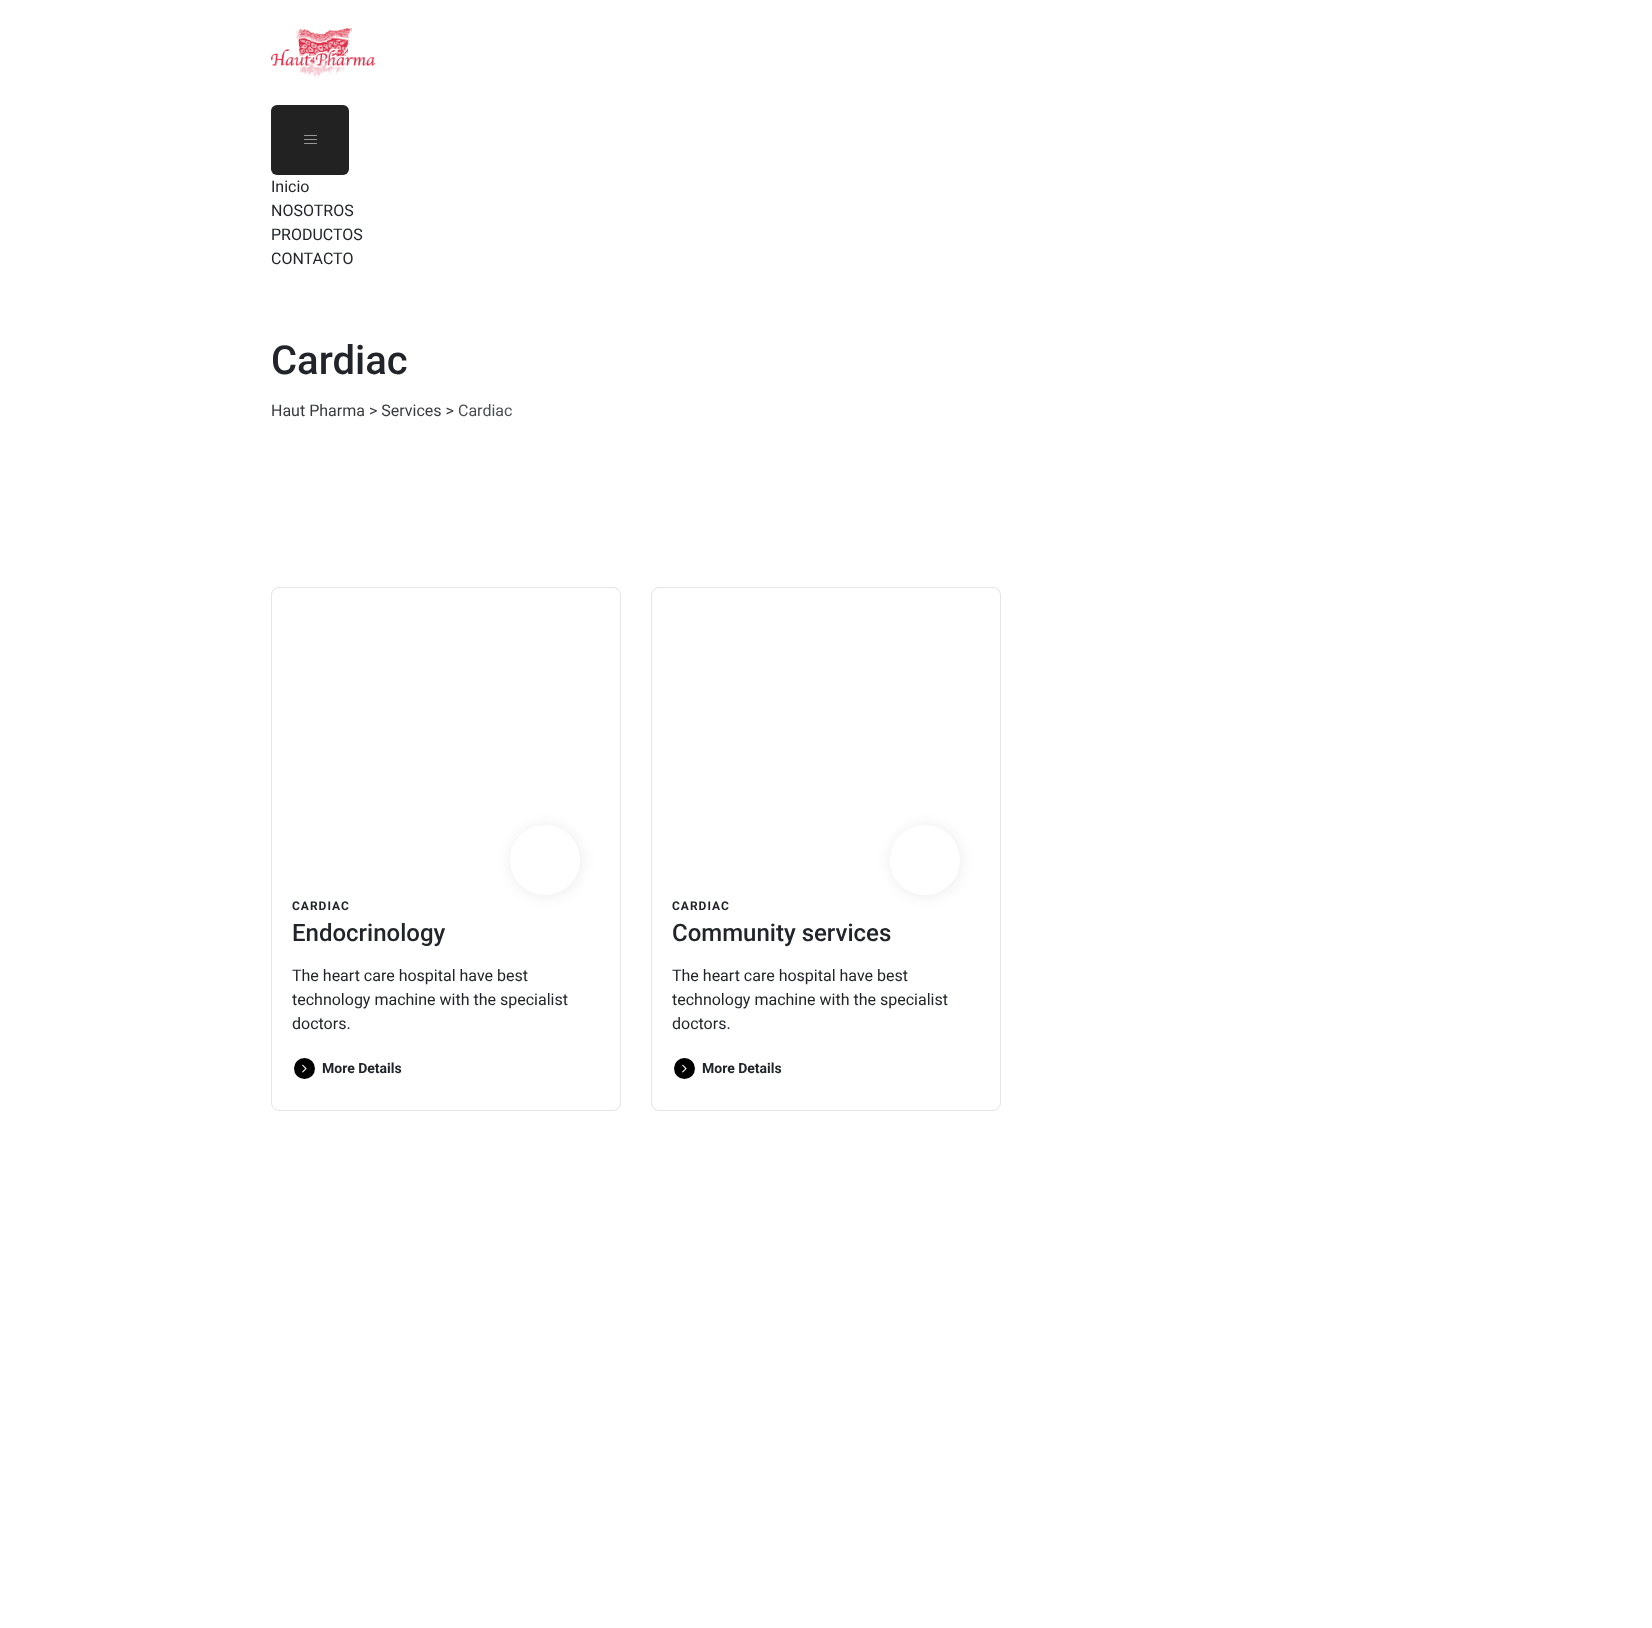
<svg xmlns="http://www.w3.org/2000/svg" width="1652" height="1628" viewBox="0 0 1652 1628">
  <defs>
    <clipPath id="clip1"><path d="M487 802H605V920H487ZM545 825C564.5 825 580 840.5 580 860C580 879.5 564.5 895 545 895C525.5 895 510 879.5 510 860C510 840.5 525.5 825 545 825Z" clip-rule="evenodd"/></clipPath>
    <filter id="blur1" x="-50%" y="-200%" width="200%" height="500%"><feGaussianBlur stdDeviation="7.5"/></filter>
    <clipPath id="clip2"><path d="M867 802H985V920H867ZM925 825C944.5 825 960 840.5 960 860C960 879.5 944.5 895 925 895C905.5 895 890 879.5 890 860C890 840.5 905.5 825 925 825Z" clip-rule="evenodd"/></clipPath>
  </defs>
  <rect width="100%" height="100%" fill="#ffffff"/>
  <image x="271" y="28" width="104" height="50" href="img1.png"/>
  <rect x="271" y="105" width="78" height="70" rx="6" fill="#222222"/>
  <image x="304" y="135" width="13" height="9" href="img2.png"/>
  <text x="271" y="192" font-family="Roboto" font-size="16" fill="#212529">Inicio</text>
  <text x="271" y="216" font-family="Roboto" font-size="16" fill="#212529">NOSOTROS</text>
  <text x="271" y="240" font-family="Roboto" font-size="16" fill="#212529">PRODUCTOS</text>
  <text x="271" y="264" font-family="Roboto" font-size="16" fill="#212529">CONTACTO</text>
  <text x="271" y="374" font-family="Roboto" font-size="40" font-weight="500" fill="#212529">Cardiac</text>
  <text x="271" y="416" font-family="Roboto" font-size="16" fill="#373b3e">Haut Pharma &gt; Services &gt;</text>
  <text x="458" y="416" font-family="Roboto" font-size="16" fill="#4b4e52">Cardiac</text>
  <rect x="271.5" y="587.5" width="349" height="523" rx="7.5" fill="none" stroke="#e5e5e5"/>
  <g clip-path="url(#clip1)">
    <rect x="511" y="826" width="70" height="70" rx="35" fill="#000000" fill-opacity="0.08" filter="url(#blur1)"/>
  </g>
  <text x="292" y="910" font-family="Roboto" font-size="12" font-weight="bold" letter-spacing="1" fill="#212529">CARDIAC</text>
  <text x="292" y="941" font-family="Roboto" font-size="24" font-weight="500" fill="#212529">Endocrinology</text>
  <text x="292" y="981" font-family="Roboto" font-size="16" fill="#212529">The heart care hospital have best</text>
  <text x="292" y="1005" font-family="Roboto" font-size="16" fill="#212529">technology machine with the specialist</text>
  <text x="292" y="1029" font-family="Roboto" font-size="16" fill="#212529">doctors.</text>
  <circle cx="304.5" cy="1068.5" r="10.5" fill="#000000"/>
  <image x="302" y="1064" width="5" height="9" href="img3.png"/>
  <text x="322" y="1073" font-family="Roboto" font-size="14" font-weight="bold" fill="#212529">More Details</text>
  <rect x="651.5" y="587.5" width="349" height="523" rx="7.5" fill="none" stroke="#e5e5e5"/>
  <g clip-path="url(#clip2)">
    <rect x="891" y="826" width="70" height="70" rx="35" fill="#000000" fill-opacity="0.08" filter="url(#blur1)"/>
  </g>
  <text x="672" y="910" font-family="Roboto" font-size="12" font-weight="bold" letter-spacing="1" fill="#212529">CARDIAC</text>
  <text x="672" y="941" font-family="Roboto" font-size="24" font-weight="500" fill="#212529">Community services</text>
  <text x="672" y="981" font-family="Roboto" font-size="16" fill="#212529">The heart care hospital have best</text>
  <text x="672" y="1005" font-family="Roboto" font-size="16" fill="#212529">technology machine with the specialist</text>
  <text x="672" y="1029" font-family="Roboto" font-size="16" fill="#212529">doctors.</text>
  <circle cx="684.5" cy="1068.5" r="10.5" fill="#000000"/>
  <image x="682" y="1064" width="5" height="9" href="img3.png"/>
  <text x="702" y="1073" font-family="Roboto" font-size="14" font-weight="bold" fill="#212529">More Details</text>
</svg>
